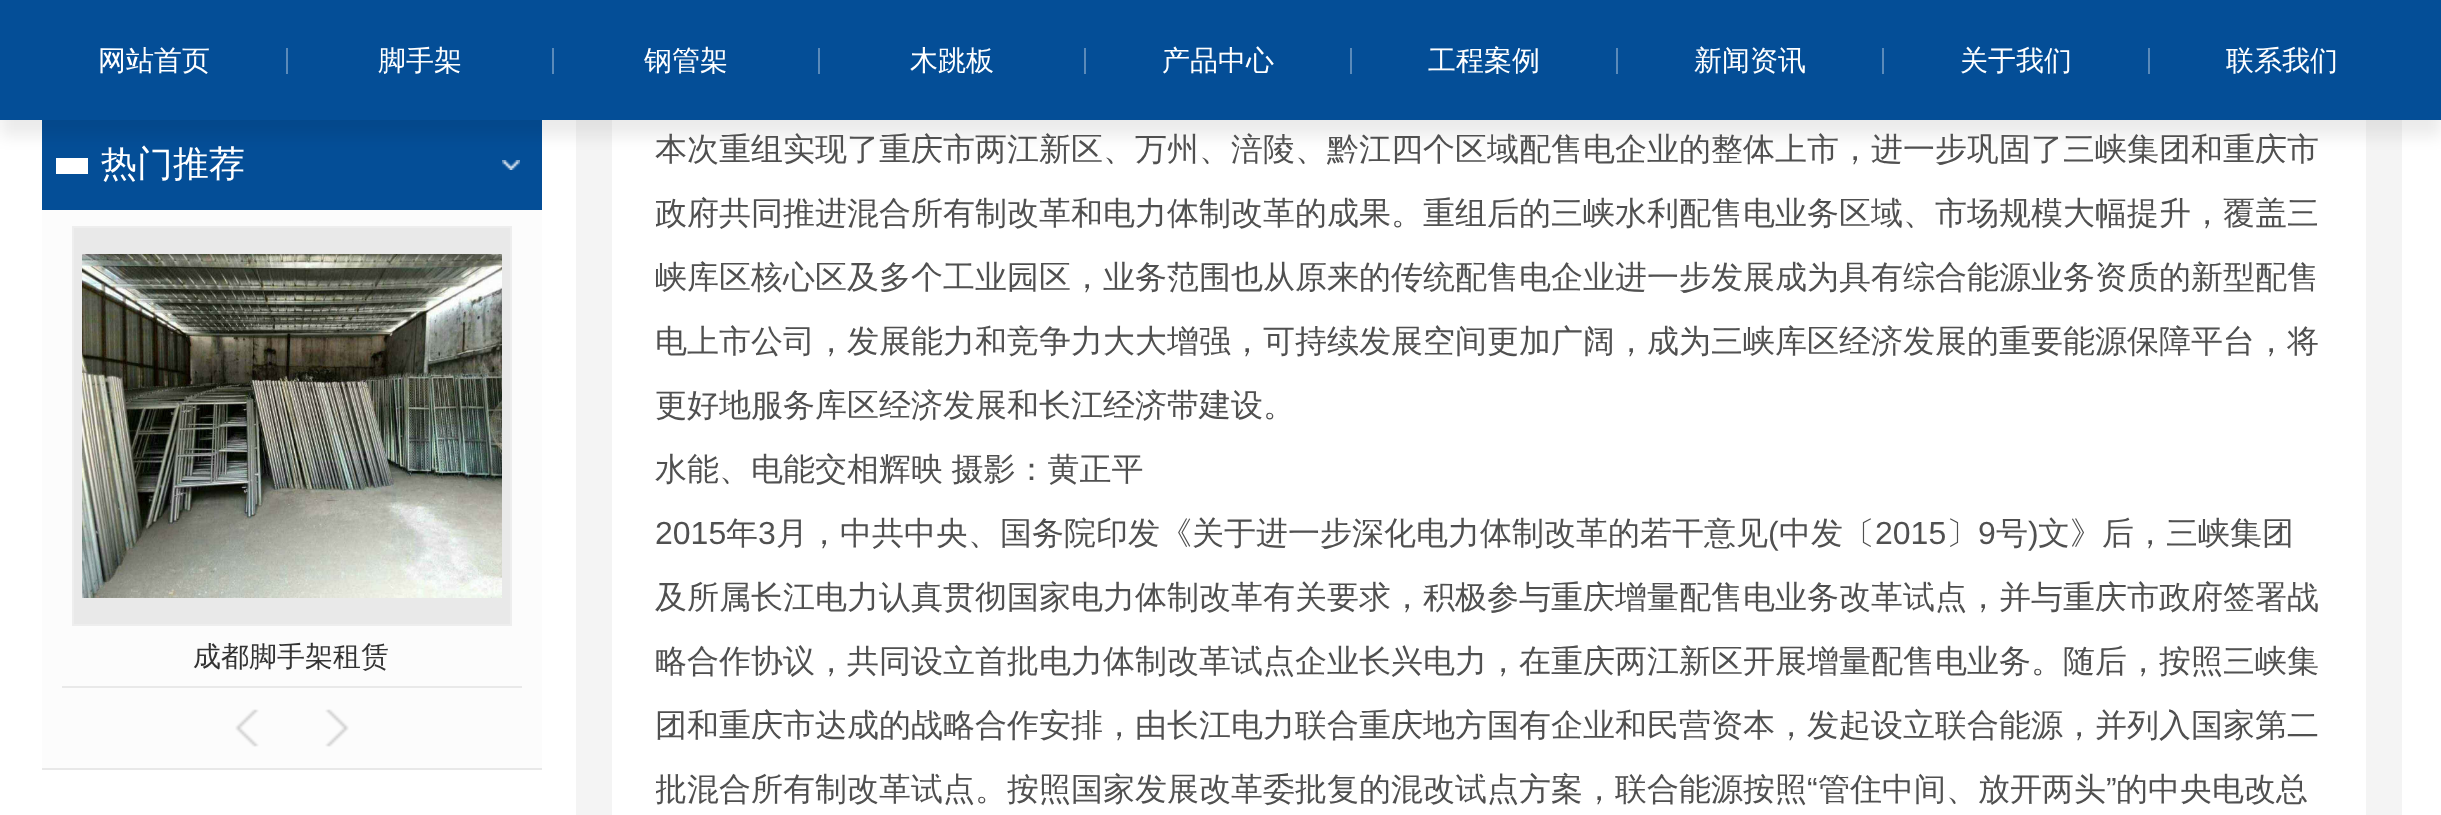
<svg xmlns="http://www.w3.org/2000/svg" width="2441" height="815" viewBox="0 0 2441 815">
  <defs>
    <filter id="blur1" x="-50%" y="-200%" width="200%" height="500%"><feGaussianBlur stdDeviation="8"/></filter>
    <clipPath id="clip1"><rect x="656" y="0" width="1666" height="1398"/></clipPath>
  </defs>
  <rect width="100%" height="100%" fill="#ffffff"/>
  <rect x="42" y="120" width="500" height="90" fill="#044e97"/>
  <image x="502" y="160" width="18" height="10" href="img1.png"/>
  <rect x="56" y="158" width="32" height="16" fill="#ffffff"/>
  <rect x="594" y="-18" width="1790" height="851" fill="none" stroke="#f4f4f4" stroke-width="36"/>
  <rect x="0" y="16" width="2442" height="120" fill="#000000" fill-opacity="0.08" filter="url(#blur1)"/>
  <rect x="0" y="0" width="2441" height="120" fill="#044e97"/>
  <text x="98" y="70" font-family="WenQuanYi Zen Hei" font-size="28" font-weight="500" fill="#ffffff">网站首页</text>
  <rect x="286" y="48" width="2" height="26" fill="#5a8aba"/>
  <text x="378" y="70" font-family="WenQuanYi Zen Hei" font-size="28" font-weight="500" fill="#ffffff">脚手架</text>
  <rect x="552" y="48" width="2" height="26" fill="#5a8aba"/>
  <text x="644" y="70" font-family="WenQuanYi Zen Hei" font-size="28" font-weight="500" fill="#ffffff">钢管架</text>
  <rect x="818" y="48" width="2" height="26" fill="#5a8aba"/>
  <text x="910" y="70" font-family="WenQuanYi Zen Hei" font-size="28" font-weight="500" fill="#ffffff">木跳板</text>
  <rect x="1084" y="48" width="2" height="26" fill="#5a8aba"/>
  <text x="1162" y="70" font-family="WenQuanYi Zen Hei" font-size="28" font-weight="500" fill="#ffffff">产品中心</text>
  <rect x="1350" y="48" width="2" height="26" fill="#5a8aba"/>
  <text x="1428" y="70" font-family="WenQuanYi Zen Hei" font-size="28" font-weight="500" fill="#ffffff">工程案例</text>
  <rect x="1616" y="48" width="2" height="26" fill="#5a8aba"/>
  <text x="1694" y="70" font-family="WenQuanYi Zen Hei" font-size="28" font-weight="500" fill="#ffffff">新闻资讯</text>
  <rect x="1882" y="48" width="2" height="26" fill="#5a8aba"/>
  <text x="1960" y="70" font-family="WenQuanYi Zen Hei" font-size="28" font-weight="500" fill="#ffffff">关于我们</text>
  <rect x="2148" y="48" width="2" height="26" fill="#5a8aba"/>
  <text x="2226" y="70" font-family="WenQuanYi Zen Hei" font-size="28" font-weight="500" fill="#ffffff">联系我们</text>
  <rect x="42" y="210" width="500" height="558" fill="#fcfcfc"/>
  <rect x="42" y="768" width="500" height="2" fill="#e8e8e8"/>
  <text x="101" y="176" font-family="WenQuanYi Zen Hei" font-size="36" font-weight="500" fill="#ffffff">热门推荐</text>
  <rect x="62" y="686" width="460" height="2" fill="#e9e9e9"/>
  <rect x="73" y="227" width="438" height="398" fill="#e9e9e9" stroke="#eeeeee" stroke-width="2"/>
  <image x="82" y="254" width="420" height="344" href="img2.png"/>
  <text x="193" y="666" font-family="WenQuanYi Zen Hei" font-size="28" font-weight="500" fill="#333333">成都脚手架租赁</text>
  <image x="235" y="709" width="24" height="38" href="img3.png"/>
  <image x="325" y="709" width="24" height="38" href="img4.png"/>
  <text x="655" y="160" font-family="WenQuanYi Zen Hei" font-size="32" font-weight="500" fill="#505050">本次重组实现了重庆市两江新区、万州、涪陵、黔江四个区域配售电企业的整体上市，进一步巩固了三峡集团和重庆市</text>
  <g clip-path="url(#clip1)">
    <text x="655" y="224" font-family="WenQuanYi Zen Hei" font-size="32" font-weight="500" fill="#505050">政府共同推进混合所有制改革和电力体制改革的成果。重组后的三峡水利配售电业务区域、市场规模大幅提升，覆盖三</text>
    <text x="655" y="288" font-family="WenQuanYi Zen Hei" font-size="32" font-weight="500" fill="#505050">峡库区核心区及多个工业园区，业务范围也从原来的传统配售电企业进一步发展成为具有综合能源业务资质的新型配售</text>
  </g>
  <text x="655" y="352" font-family="WenQuanYi Zen Hei" font-size="32" font-weight="500" fill="#505050">电上市公司，发展能力和竞争力大大增强，可持续发展空间更加广阔，成为三峡库区经济发展的重要能源保障平台，将</text>
  <text x="655" y="416" font-family="WenQuanYi Zen Hei" font-size="32" font-weight="500" fill="#505050">更好地服务库区经济发展和长江经济带建设。</text>
  <text x="655" y="480" word-spacing="-1" font-family="WenQuanYi Zen Hei" font-size="32" font-weight="500" fill="#505050">水能、电能交相辉映 摄影：黄正平</text>
  <text x="655" y="544" font-family="Liberation Sans" font-size="32" fill="#505050">2015</text>
  <text x="726" y="544" font-family="WenQuanYi Zen Hei" font-size="32" font-weight="500" fill="#505050">年</text>
  <text x="758" y="544" font-family="Liberation Sans" font-size="32" fill="#505050">3</text>
  <text x="776" y="544" font-family="WenQuanYi Zen Hei" font-size="32" font-weight="500" fill="#505050">月，中共中央、国务院印发《关于进一步深化电力体制改革的若干意见</text>
  <text x="1768" y="544" font-family="Liberation Sans" font-size="32" fill="#505050">(</text>
  <text x="1779" y="544" font-family="WenQuanYi Zen Hei" font-size="32" font-weight="500" fill="#505050">中发〔</text>
  <text x="1875" y="544" font-family="Liberation Sans" font-size="32" fill="#505050">2015</text>
  <text x="1946" y="544" font-family="WenQuanYi Zen Hei" font-size="32" font-weight="500" fill="#505050">〕</text>
  <text x="1978" y="544" font-family="Liberation Sans" font-size="32" fill="#505050">9</text>
  <text x="1996" y="544" font-family="WenQuanYi Zen Hei" font-size="32" font-weight="500" fill="#505050">号</text>
  <text x="2028" y="544" font-family="Liberation Sans" font-size="32" fill="#505050">)</text>
  <text x="2038" y="544" font-family="WenQuanYi Zen Hei" font-size="32" font-weight="500" fill="#505050">文》后，三峡集团</text>
  <text x="655" y="608" font-family="WenQuanYi Zen Hei" font-size="32" font-weight="500" fill="#505050">及所属长江电力认真贯彻国家电力体制改革有关要求，积极参与重庆增量配售电业务改革试点，并与重庆市政府签署战</text>
  <text x="655" y="672" font-family="WenQuanYi Zen Hei" font-size="32" font-weight="500" fill="#505050">略合作协议，共同设立首批电力体制改革试点企业长兴电力，在重庆两江新区开展增量配售电业务。随后，按照三峡集</text>
  <text x="655" y="736" font-family="WenQuanYi Zen Hei" font-size="32" font-weight="500" fill="#505050">团和重庆市达成的战略合作安排，由长江电力联合重庆地方国有企业和民营资本，发起设立联合能源，并列入国家第二</text>
  <g clip-path="url(#clip1)">
    <text x="655" y="800" font-family="WenQuanYi Zen Hei" font-size="32" font-weight="500" fill="#505050">批混合所有制改革试点。按照国家发展改革委批复的混改试点方案，联合能源按照</text>
  </g>
  <text x="1807" y="800" font-family="Liberation Sans" font-size="32" fill="#505050">“</text>
  <text x="1818" y="800" font-family="WenQuanYi Zen Hei" font-size="32" font-weight="500" fill="#505050">管住中间、放开两头</text>
  <text x="2106" y="800" font-family="Liberation Sans" font-size="32" fill="#505050">”</text>
  <text x="2116" y="800" font-family="WenQuanYi Zen Hei" font-size="32" font-weight="500" fill="#505050">的中央电改总</text>
</svg>
